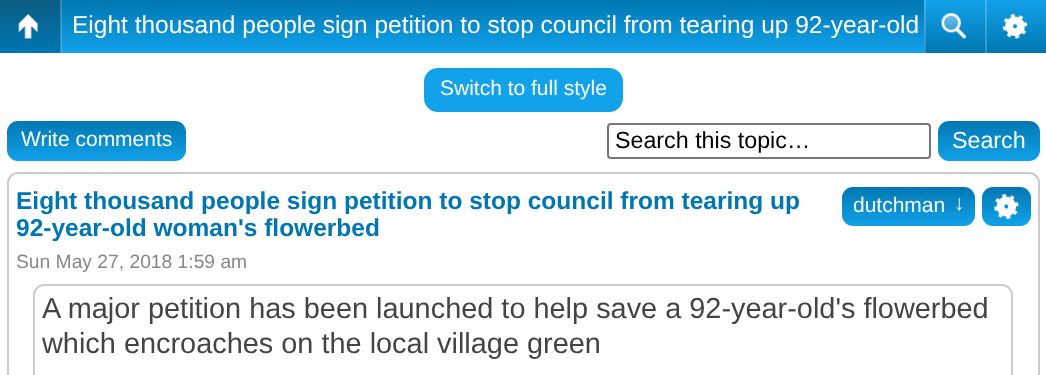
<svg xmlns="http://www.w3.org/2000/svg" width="1046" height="375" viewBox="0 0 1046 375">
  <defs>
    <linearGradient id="g1" gradientUnits="userSpaceOnUse" x1="523" y1="0" x2="523" y2="53"><stop offset="0" stop-color="#0077b2"/><stop offset="1" stop-color="#12a2ea"/></linearGradient>
    <linearGradient id="g2" gradientUnits="userSpaceOnUse" x1="523" y1="0" x2="523" y2="53"><stop offset="0" stop-color="#3392c1"/><stop offset="1" stop-color="#41b5ee"/></linearGradient>
    <linearGradient id="g3" gradientUnits="userSpaceOnUse" x1="31" y1="0" x2="31" y2="53"><stop offset="0" stop-color="#0b5c84"/><stop offset="1" stop-color="#0077b2"/></linearGradient>
    <linearGradient id="g4" gradientUnits="userSpaceOnUse" x1="31" y1="0" x2="31" y2="53"><stop offset="0" stop-color="#3c7d9d"/><stop offset="1" stop-color="#3392c1"/></linearGradient>
    <linearGradient id="g5" gradientUnits="userSpaceOnUse" x1="955" y1="0" x2="955" y2="53"><stop offset="0" stop-color="#12a2ea"/><stop offset="1" stop-color="#0076b1"/></linearGradient>
    <linearGradient id="g6" gradientUnits="userSpaceOnUse" x1="955" y1="0" x2="955" y2="53"><stop offset="0" stop-color="#41b5ee"/><stop offset="1" stop-color="#3391c1"/></linearGradient>
    <linearGradient id="g7" gradientUnits="userSpaceOnUse" x1="1016" y1="0" x2="1016" y2="53"><stop offset="0" stop-color="#12a2ea"/><stop offset="1" stop-color="#0076b1"/></linearGradient>
    <linearGradient id="g8" gradientUnits="userSpaceOnUse" x1="1016" y1="0" x2="1016" y2="53"><stop offset="0" stop-color="#41b5ee"/><stop offset="1" stop-color="#3391c1"/></linearGradient>
    <linearGradient id="g9" gradientUnits="userSpaceOnUse" x1="96" y1="121" x2="96" y2="161"><stop offset="0" stop-color="#0077b2"/><stop offset="1" stop-color="#12a2ea"/></linearGradient>
    <linearGradient id="g10" gradientUnits="userSpaceOnUse" x1="989" y1="121" x2="989" y2="161"><stop offset="0" stop-color="#0077b2"/><stop offset="1" stop-color="#12a2ea"/></linearGradient>
    <linearGradient id="g11" gradientUnits="userSpaceOnUse" x1="908" y1="187" x2="908" y2="226"><stop offset="0" stop-color="#0077b2"/><stop offset="1" stop-color="#12a2ea"/></linearGradient>
    <linearGradient id="g12" gradientUnits="userSpaceOnUse" x1="1006" y1="187" x2="1006" y2="226"><stop offset="0" stop-color="#0077b2"/><stop offset="1" stop-color="#12a2ea"/></linearGradient>
  </defs>
  <rect width="100%" height="100%" fill="#ffffff"/>
  <rect x="62" y="0" width="862" height="53" fill="url(#g1)"/>
  <rect x="61" y="0" width="1" height="53" fill="url(#g2)"/>
  <rect x="0" y="0" width="60" height="53" fill="url(#g3)"/>
  <rect x="60" y="0" width="1" height="53" fill="url(#g4)"/>
  <image x="18" y="14" width="20" height="25" href="img1.png"/>
  <text x="72" y="33" font-family="Liberation Sans" font-size="24.5" fill="#ffffff">Eight thousand people sign petition to stop council from tearing up 92-year-old</text>
  <rect x="926" y="0" width="59" height="53" fill="url(#g5)"/>
  <rect x="924" y="0" width="2" height="53" fill="url(#g6)"/>
  <image x="941" y="13" width="25" height="26" href="img2.png"/>
  <rect x="987" y="0" width="59" height="53" fill="url(#g7)"/>
  <rect x="985" y="0" width="2" height="53" fill="url(#g8)"/>
  <image x="1002" y="14" width="26" height="25" href="img3.png"/>
  <rect x="424" y="68" width="199" height="44" rx="14" fill="#12a2ea"/>
  <text x="440" y="95" font-family="Liberation Sans" font-size="21" fill="#ffffff">Switch to full style</text>
  <rect x="7" y="121" width="179" height="40" rx="11" fill="url(#g9)"/>
  <text x="21" y="146" font-family="Liberation Sans" font-size="21" fill="#ffffff">Write comments</text>
  <rect x="608" y="124" width="322" height="34" rx="3" fill="none" stroke="#767676" stroke-width="2"/>
  <text x="615" y="148" font-family="Liberation Sans" font-size="23.25" fill="#000000">Search this topic…</text>
  <rect x="938" y="121" width="102" height="40" rx="11" fill="url(#g10)"/>
  <text x="952" y="148" font-family="Liberation Sans" font-size="23.25" fill="#ffffff">Search</text>
  <rect x="8" y="173" width="1031" height="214" rx="10" fill="none" stroke="#cccccc" stroke-width="2"/>
  <text x="16" y="209" font-family="Liberation Sans" font-size="24.5" font-weight="bold" fill="#0077b2">Eight thousand people sign petition to stop council from tearing up</text>
  <text x="16" y="236" font-family="Liberation Sans" font-size="24.5" font-weight="bold" fill="#0077b2">92-year-old woman's flowerbed</text>
  <rect x="842" y="187" width="133" height="39" rx="11" fill="url(#g11)"/>
  <text x="853" y="212" font-family="Liberation Sans" font-size="21" fill="#ffffff">dutchman</text>
  <text x="954" y="210" font-family="Liberation Sans" font-size="21" fill="#ffffff">↓</text>
  <rect x="982" y="187" width="49" height="39" rx="11" fill="url(#g12)"/>
  <image x="994" y="194" width="25" height="26" href="img4.png"/>
  <text x="16" y="268" font-family="Liberation Sans" font-size="19.25" fill="#888888">Sun May 27, 2018 1:59 am</text>
  <rect x="34" y="285" width="978" height="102" rx="10" fill="none" stroke="#cccccc" stroke-width="2"/>
  <text x="42" y="318" font-family="Liberation Sans" font-size="28.9" fill="#444444">A major petition has been launched to help save a 92-year-old's flowerbed</text>
  <text x="42" y="353" font-family="Liberation Sans" font-size="28.9" fill="#444444">which encroaches on the local village green</text>
</svg>
